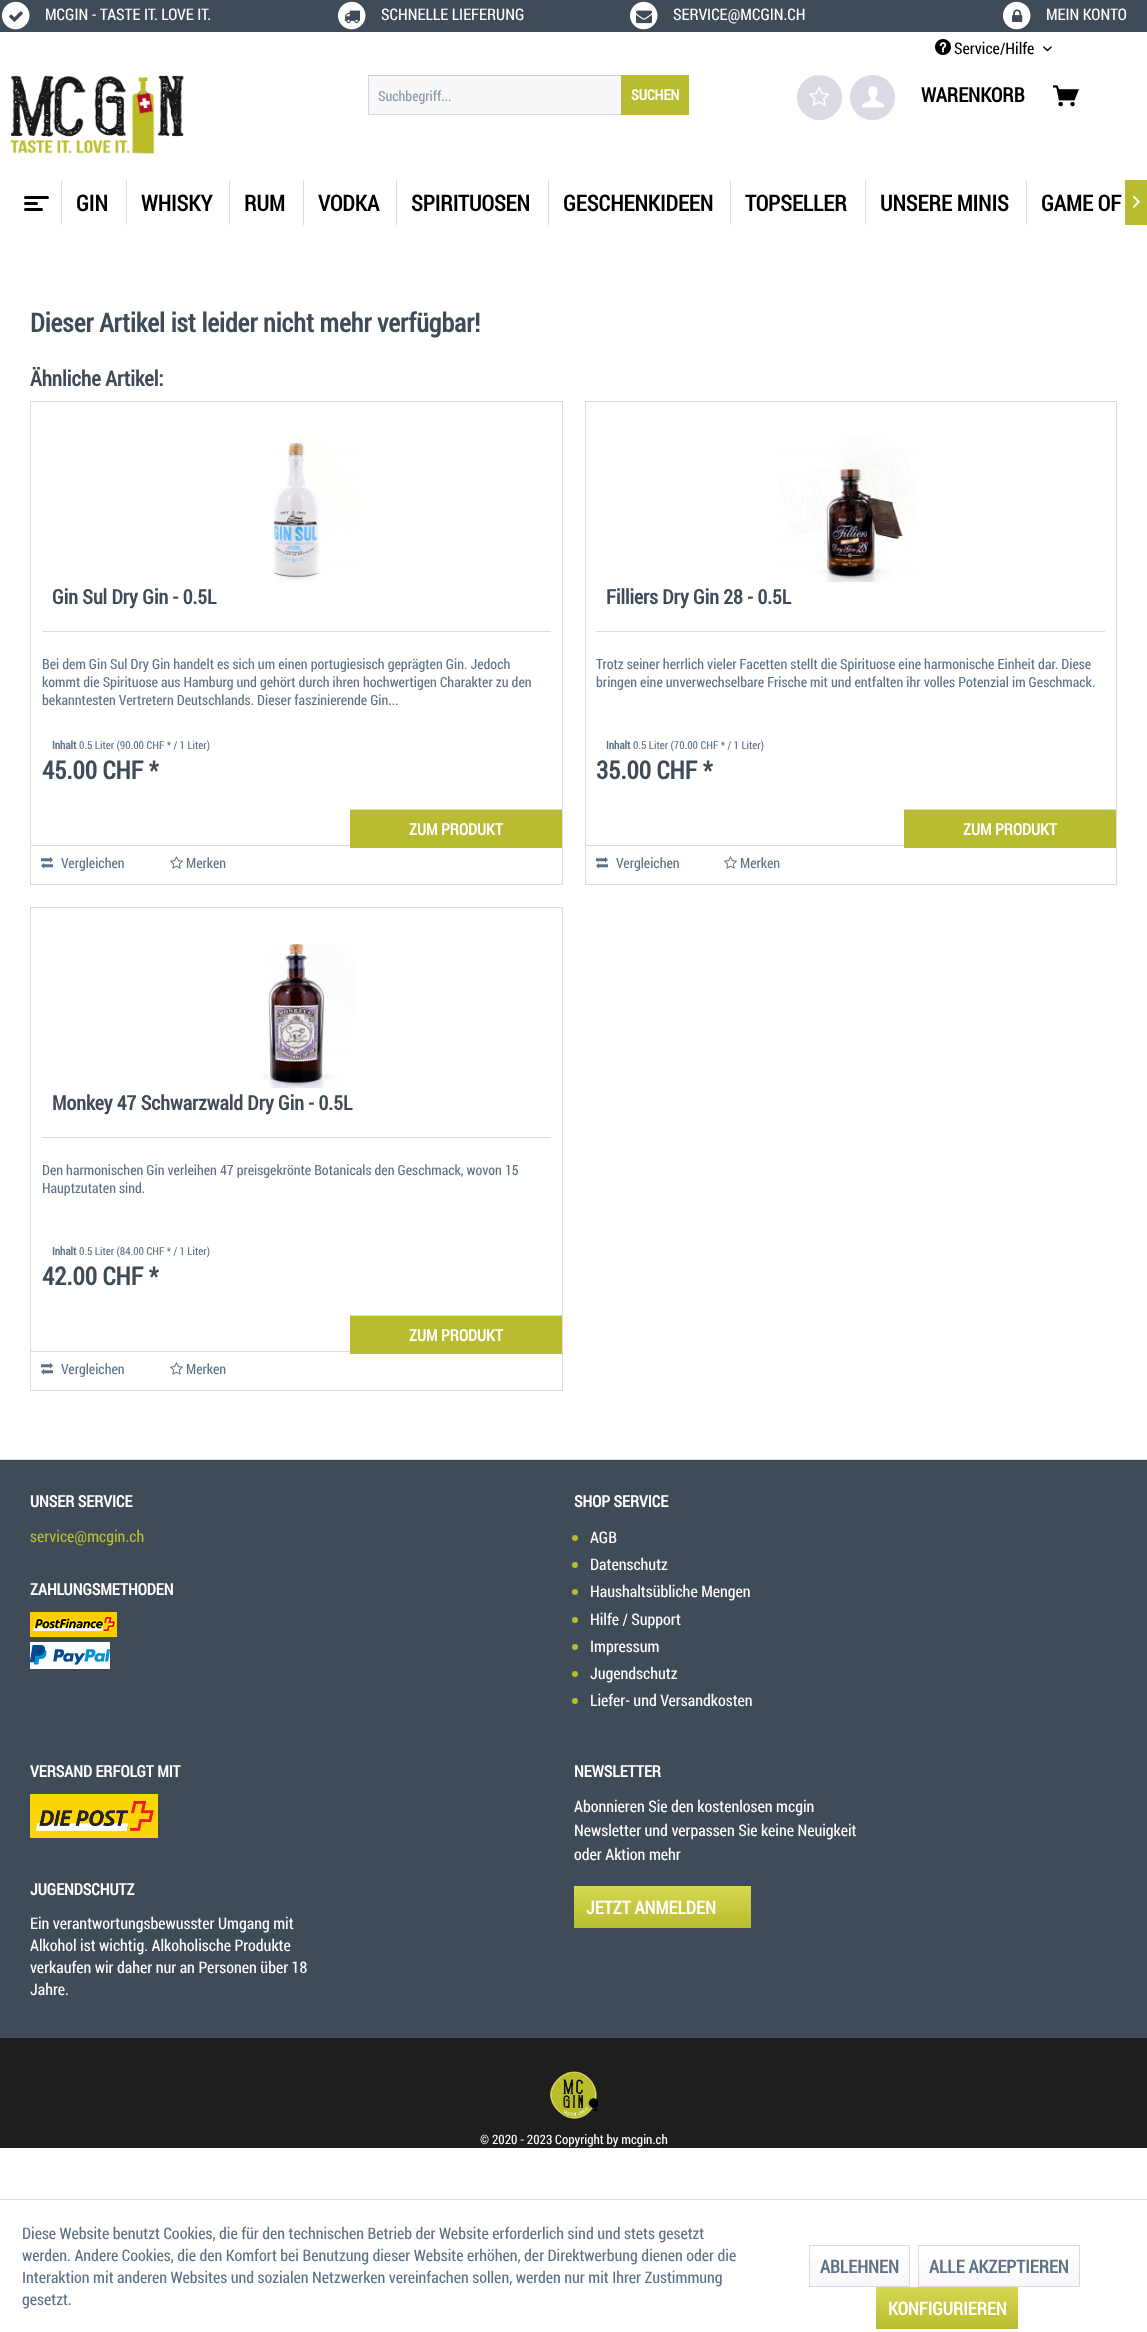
<svg xmlns="http://www.w3.org/2000/svg" width="1147" height="2332" viewBox="0 0 1147 2332">
  <defs>
    <linearGradient id="g1" gradientUnits="userSpaceOnUse" x1="663" y1="1886" x2="663" y2="1928"><stop offset="0" stop-color="#d6d950"/><stop offset="1" stop-color="#b9bc30"/></linearGradient>
    <linearGradient id="g2" gradientUnits="userSpaceOnUse" x1="860" y1="2246" x2="860" y2="2286"><stop offset="0" stop-color="#ffffff"/><stop offset="1" stop-color="#f8f8fa"/></linearGradient>
    <linearGradient id="g3" gradientUnits="userSpaceOnUse" x1="999" y1="2246" x2="999" y2="2286"><stop offset="0" stop-color="#ffffff"/><stop offset="1" stop-color="#f8f8fa"/></linearGradient>
    <linearGradient id="g4" gradientUnits="userSpaceOnUse" x1="947" y1="2287" x2="947" y2="2329"><stop offset="0" stop-color="#d6d950"/><stop offset="1" stop-color="#b9bc30"/></linearGradient>
  </defs>
  <rect width="100%" height="100%" fill="#ffffff"/>
  <rect x="0" y="0" width="1147" height="32" fill="#3f4c58"/>
  <image x="2" y="1" width="28" height="29" href="img1.png"/>
  <image x="9" y="11" width="14" height="11" href="img2.png"/>
  <text x="45" y="20" font-family="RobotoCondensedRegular" font-size="16" fill="#ffffff">MCGIN - TASTE IT. LOVE IT.</text>
  <image x="338" y="1" width="28" height="29" href="img1.png"/>
  <image x="344" y="10" width="16" height="14" href="img3.png"/>
  <text x="381" y="20" font-family="RobotoCondensedRegular" font-size="16" fill="#ffffff">SCHNELLE LIEFERUNG</text>
  <image x="630" y="1" width="28" height="29" href="img1.png"/>
  <image x="636" y="10" width="16" height="14" href="img4.png"/>
  <text x="673" y="20" font-family="RobotoCondensedRegular" font-size="16" fill="#ffffff">SERVICE@MCGIN.CH</text>
  <image x="1003" y="1" width="28" height="29" href="img1.png"/>
  <image x="1012" y="9" width="11" height="13" href="img5.png"/>
  <text x="1046" y="20" font-family="RobotoCondensedRegular" font-size="16" fill="#ffffff">MEIN KONTO</text>
  <image x="935" y="39" width="16" height="16" href="img6.png"/>
  <text x="954" y="54" font-family="RobotoCondensedRegular" font-size="16" fill="#000000">Service/Hilfe</text>
  <image x="1043" y="46" width="9" height="6" href="img7.png"/>
  <image x="10" y="75" width="174" height="79" href="img8.png"/>
  <rect x="369" y="76" width="252" height="38" fill="#f8f8fa"/>
  <rect x="368" y="75" width="253" height="1" fill="#cbcbdb"/>
  <rect x="368" y="114" width="253" height="1" fill="#dadae5"/>
  <rect x="368" y="75" width="1" height="40" fill="#dadae5"/>
  <text x="378" y="101" font-family="RobotoCondensedRegular" font-size="14" fill="#8798a9">Suchbegriff...</text>
  <rect x="621" y="75" width="68" height="40" fill="#b9bc30"/>
  <text x="631" y="100" font-family="RobotoCondensedRegular" font-size="14.5" font-weight="bold" fill="#ffffff">SUCHEN</text>
  <circle cx="819.5" cy="97.5" r="21.5" fill="#dadae5" stroke="#dadae5" stroke-width="2"/>
  <image x="809" y="86" width="21" height="20" href="img9.png"/>
  <circle cx="872.5" cy="97.5" r="21.5" fill="#dadae5" stroke="#dadae5" stroke-width="2"/>
  <image x="862" y="86" width="22" height="22" href="img10.png"/>
  <text x="921" y="102" font-family="RobotoCondensedRegular" font-size="20" font-weight="bold" fill="#000000">WARENKORB</text>
  <image x="1053" y="85" width="26" height="22" href="img11.png"/>
  <rect x="24" y="196" width="25" height="3" rx="1.5" fill="#000000"/>
  <rect x="24" y="202" width="14" height="3" rx="1.5" fill="#000000"/>
  <rect x="24" y="208" width="19" height="3" rx="1.5" fill="#000000"/>
  <rect x="61" y="180" width="1" height="45" fill="#dadae5"/>
  <text x="76" y="211" font-family="RobotoCondensedRegular" font-size="22" font-weight="bold" fill="#000000">GIN</text>
  <rect x="126" y="180" width="1" height="45" fill="#dadae5"/>
  <text x="141" y="211" font-family="RobotoCondensedRegular" font-size="22" font-weight="bold" fill="#000000">WHISKY</text>
  <rect x="229" y="180" width="1" height="45" fill="#dadae5"/>
  <text x="244" y="211" font-family="RobotoCondensedRegular" font-size="22" font-weight="bold" fill="#000000">RUM</text>
  <rect x="303" y="180" width="1" height="45" fill="#dadae5"/>
  <text x="318" y="211" font-family="RobotoCondensedRegular" font-size="22" font-weight="bold" fill="#000000">VODKA</text>
  <rect x="396" y="180" width="1" height="45" fill="#dadae5"/>
  <text x="411" y="211" font-family="RobotoCondensedRegular" font-size="22" font-weight="bold" fill="#000000">SPIRITUOSEN</text>
  <rect x="548" y="180" width="1" height="45" fill="#dadae5"/>
  <text x="563" y="211" font-family="RobotoCondensedRegular" font-size="22" font-weight="bold" fill="#000000">GESCHENKIDEEN</text>
  <rect x="730" y="180" width="1" height="45" fill="#dadae5"/>
  <text x="745" y="211" font-family="RobotoCondensedRegular" font-size="22" font-weight="bold" fill="#000000">TOPSELLER</text>
  <rect x="865" y="180" width="1" height="45" fill="#dadae5"/>
  <text x="880" y="211" font-family="RobotoCondensedRegular" font-size="22" font-weight="bold" fill="#000000">UNSERE MINIS</text>
  <rect x="1026" y="180" width="1" height="45" fill="#dadae5"/>
  <text x="1041" y="211" font-family="RobotoCondensedRegular" font-size="22" font-weight="bold" fill="#000000">GAME OF</text>
  <rect x="1125.5" y="180.5" width="21" height="44" fill="#b9bc30" stroke="#b9bc30"/>
  <image x="1133" y="195" width="7" height="13" href="img12.png"/>
  <text x="30" y="332" font-family="RobotoCondensedRegular" font-size="26" font-weight="bold" fill="#3f4c58">Dieser Artikel ist leider nicht mehr verfügbar!</text>
  <text x="30" y="386" font-family="RobotoCondensedRegular" font-size="21" font-weight="bold" fill="#3f4c58">Ähnliche Artikel:</text>
  <rect x="30.5" y="401.5" width="532" height="483" fill="none" stroke="#dadae5"/>
  <image x="273" y="438" width="89" height="144" href="img13.png"/>
  <rect x="42" y="631" width="509" height="1" fill="#dadae5"/>
  <text x="52" y="604" font-family="RobotoCondensedRegular" font-size="20" font-weight="bold" fill="#3f4c58">Gin Sul Dry Gin - 0.5L</text>
  <text x="42" y="669" font-family="RobotoCondensedRegular" font-size="14" fill="#5f7285">Bei dem Gin Sul Dry Gin handelt es sich um einen portugiesisch geprägten Gin. Jedoch</text>
  <text x="42" y="687" font-family="RobotoCondensedRegular" font-size="14" fill="#5f7285">kommt die Spirituose aus Hamburg und gehört durch ihren hochwertigen Charakter zu den</text>
  <text x="42" y="705" font-family="RobotoCondensedRegular" font-size="14" fill="#5f7285">bekanntesten Vertretern Deutschlands. Dieser faszinierende Gin...</text>
  <text x="52" y="749" font-family="RobotoCondensedRegular" font-size="11" font-weight="bold" fill="#5f7285">Inhalt</text>
  <text x="79" y="749" font-family="RobotoCondensedRegular" font-size="11" fill="#5f7285">0.5 Liter (90.00 CHF * / 1 Liter)</text>
  <text x="42" y="779" font-family="RobotoCondensedRegular" font-size="25" font-weight="bold" fill="#3f4c58">45.00 CHF *</text>
  <rect x="31" y="845" width="324" height="1" fill="#dadae5"/>
  <rect x="350" y="810" width="212" height="38" fill="#b9bc30"/>
  <rect x="350" y="809" width="212" height="1" fill="#dadae5"/>
  <text x="409" y="835" font-family="RobotoCondensedRegular" font-size="16" font-weight="bold" fill="#ffffff">ZUM PRODUKT</text>
  <image x="41" y="856" width="12" height="13" href="img14.png"/>
  <text x="61" y="868" font-family="RobotoCondensedRegular" font-size="14" fill="#5f7285">Vergleichen</text>
  <image x="170" y="856" width="13" height="13" href="img15.png"/>
  <text x="186" y="868" font-family="RobotoCondensedRegular" font-size="14" fill="#5f7285">Merken</text>
  <rect x="585.5" y="401.5" width="531" height="483" fill="none" stroke="#dadae5"/>
  <image x="778" y="434" width="139" height="148" href="img16.png"/>
  <rect x="596" y="631" width="509" height="1" fill="#dadae5"/>
  <text x="606" y="604" font-family="RobotoCondensedRegular" font-size="20" font-weight="bold" fill="#3f4c58">Filliers Dry Gin 28 - 0.5L</text>
  <text x="596" y="669" font-family="RobotoCondensedRegular" font-size="14" fill="#5f7285">Trotz seiner herrlich vieler Facetten stellt die Spirituose eine harmonische Einheit dar. Diese</text>
  <text x="596" y="687" font-family="RobotoCondensedRegular" font-size="14" fill="#5f7285">bringen eine unverwechselbare Frische mit und entfalten ihr volles Potenzial im Geschmack.</text>
  <text x="606" y="749" font-family="RobotoCondensedRegular" font-size="11" font-weight="bold" fill="#5f7285">Inhalt</text>
  <text x="633" y="749" font-family="RobotoCondensedRegular" font-size="11" fill="#5f7285">0.5 Liter (70.00 CHF * / 1 Liter)</text>
  <text x="596" y="779" font-family="RobotoCondensedRegular" font-size="25" font-weight="bold" fill="#3f4c58">35.00 CHF *</text>
  <rect x="586" y="845" width="323" height="1" fill="#dadae5"/>
  <rect x="904" y="810" width="212" height="38" fill="#b9bc30"/>
  <rect x="904" y="809" width="212" height="1" fill="#dadae5"/>
  <text x="963" y="835" font-family="RobotoCondensedRegular" font-size="16" font-weight="bold" fill="#ffffff">ZUM PRODUKT</text>
  <image x="596" y="856" width="12" height="13" href="img14.png"/>
  <text x="616" y="868" font-family="RobotoCondensedRegular" font-size="14" fill="#5f7285">Vergleichen</text>
  <image x="724" y="856" width="13" height="13" href="img15.png"/>
  <text x="740" y="868" font-family="RobotoCondensedRegular" font-size="14" fill="#5f7285">Merken</text>
  <rect x="30.5" y="907.5" width="532" height="483" fill="none" stroke="#dadae5"/>
  <image x="260" y="944" width="96" height="144" href="img17.png"/>
  <rect x="42" y="1137" width="509" height="1" fill="#dadae5"/>
  <text x="52" y="1110" font-family="RobotoCondensedRegular" font-size="20" font-weight="bold" fill="#3f4c58">Monkey 47 Schwarzwald Dry Gin - 0.5L</text>
  <text x="42" y="1175" font-family="RobotoCondensedRegular" font-size="14" fill="#5f7285">Den harmonischen Gin verleihen 47 preisgekrönte Botanicals den Geschmack, wovon 15</text>
  <text x="42" y="1193" font-family="RobotoCondensedRegular" font-size="14" fill="#5f7285">Hauptzutaten sind.</text>
  <text x="52" y="1255" font-family="RobotoCondensedRegular" font-size="11" font-weight="bold" fill="#5f7285">Inhalt</text>
  <text x="79" y="1255" font-family="RobotoCondensedRegular" font-size="11" fill="#5f7285">0.5 Liter (84.00 CHF * / 1 Liter)</text>
  <text x="42" y="1285" font-family="RobotoCondensedRegular" font-size="25" font-weight="bold" fill="#3f4c58">42.00 CHF *</text>
  <rect x="31" y="1351" width="324" height="1" fill="#dadae5"/>
  <rect x="350" y="1316" width="212" height="38" fill="#b9bc30"/>
  <rect x="350" y="1315" width="212" height="1" fill="#dadae5"/>
  <text x="409" y="1341" font-family="RobotoCondensedRegular" font-size="16" font-weight="bold" fill="#ffffff">ZUM PRODUKT</text>
  <image x="41" y="1362" width="12" height="13" href="img14.png"/>
  <text x="61" y="1374" font-family="RobotoCondensedRegular" font-size="14" fill="#5f7285">Vergleichen</text>
  <image x="170" y="1362" width="13" height="13" href="img15.png"/>
  <text x="186" y="1374" font-family="RobotoCondensedRegular" font-size="14" fill="#5f7285">Merken</text>
  <rect x="0" y="1459" width="1147" height="1" fill="#dadae5"/>
  <rect x="0" y="1460" width="1147" height="578" fill="#3f4c58"/>
  <text x="30" y="1507" font-family="RobotoCondensedRegular" font-size="16" font-weight="bold" fill="#ffffff">UNSER SERVICE</text>
  <text x="30" y="1542" font-family="RobotoCondensedRegular" font-size="16" fill="#b9bc30">service@mcgin.ch</text>
  <text x="30" y="1595" font-family="RobotoCondensedRegular" font-size="16" font-weight="bold" fill="#ffffff">ZAHLUNGSMETHODEN</text>
  <image x="30" y="1612" width="87" height="25" href="img18.png"/>
  <image x="30" y="1642" width="80" height="27" href="img19.png"/>
  <text x="574" y="1507" font-family="RobotoCondensedRegular" font-size="16" font-weight="bold" fill="#ffffff">SHOP SERVICE</text>
  <circle cx="575" cy="1538" r="3" fill="#b9bc30"/>
  <text x="590" y="1543" font-family="RobotoCondensedRegular" font-size="16" fill="#ffffff">AGB</text>
  <circle cx="575" cy="1565" r="3" fill="#b9bc30"/>
  <text x="590" y="1570" font-family="RobotoCondensedRegular" font-size="16" fill="#ffffff">Datenschutz</text>
  <circle cx="575" cy="1592" r="3" fill="#b9bc30"/>
  <text x="590" y="1597" font-family="RobotoCondensedRegular" font-size="16" fill="#ffffff">Haushaltsübliche Mengen</text>
  <circle cx="575" cy="1620" r="3" fill="#b9bc30"/>
  <text x="590" y="1625" font-family="RobotoCondensedRegular" font-size="16" fill="#ffffff">Hilfe / Support</text>
  <circle cx="575" cy="1647" r="3" fill="#b9bc30"/>
  <text x="590" y="1652" font-family="RobotoCondensedRegular" font-size="16" fill="#ffffff">Impressum</text>
  <circle cx="575" cy="1674" r="3" fill="#b9bc30"/>
  <text x="590" y="1679" font-family="RobotoCondensedRegular" font-size="16" fill="#ffffff">Jugendschutz</text>
  <circle cx="575" cy="1701" r="3" fill="#b9bc30"/>
  <text x="590" y="1706" font-family="RobotoCondensedRegular" font-size="16" fill="#ffffff">Liefer- und Versandkosten</text>
  <text x="30" y="1777" font-family="RobotoCondensedRegular" font-size="16" font-weight="bold" fill="#ffffff">VERSAND ERFOLGT MIT</text>
  <image x="30" y="1794" width="128" height="44" href="img20.png"/>
  <text x="30" y="1895" font-family="RobotoCondensedRegular" font-size="16" font-weight="bold" fill="#ffffff">JUGENDSCHUTZ</text>
  <text x="30" y="1929" font-family="RobotoCondensedRegular" font-size="16" fill="#ffffff">Ein verantwortungsbewusster Umgang mit</text>
  <text x="30" y="1951" font-family="RobotoCondensedRegular" font-size="16" fill="#ffffff">Alkohol ist wichtig. Alkoholische Produkte</text>
  <text x="30" y="1973" font-family="RobotoCondensedRegular" font-size="16" fill="#ffffff">verkaufen wir daher nur an Personen über 18</text>
  <text x="30" y="1995" font-family="RobotoCondensedRegular" font-size="16" fill="#ffffff">Jahre.</text>
  <text x="574" y="1777" font-family="RobotoCondensedRegular" font-size="16" font-weight="bold" fill="#ffffff">NEWSLETTER</text>
  <text x="574" y="1812" font-family="RobotoCondensedRegular" font-size="16" fill="#ffffff">Abonnieren Sie den kostenlosen mcgin</text>
  <text x="574" y="1836" font-family="RobotoCondensedRegular" font-size="16" fill="#ffffff">Newsletter und verpassen Sie keine Neuigkeit</text>
  <text x="574" y="1860" font-family="RobotoCondensedRegular" font-size="16" fill="#ffffff">oder Aktion mehr</text>
  <rect x="574" y="1886" width="177" height="42" fill="url(#g1)"/>
  <text x="586" y="1914" font-family="RobotoCondensedRegular" font-size="18" font-weight="bold" fill="#ffffff">JETZT ANMELDEN</text>
  <rect x="0" y="2038" width="1147" height="110" fill="#1e1e1e"/>
  <image x="549" y="2071" width="50" height="48" href="img21.png"/>
  <text x="480" y="2144" font-family="RobotoCondensedRegular" font-size="13" fill="#ffffff">© 2020 - 2023 Copyright by mcgin.ch</text>
  <rect x="0" y="2199" width="1147" height="1" fill="#dadae5"/>
  <text x="22" y="2239" font-family="RobotoCondensedRegular" font-size="16" fill="#5f7285">Diese Website benutzt Cookies, die für den technischen Betrieb der Website erforderlich sind und stets gesetzt</text>
  <text x="22" y="2261" font-family="RobotoCondensedRegular" font-size="16" fill="#5f7285">werden. Andere Cookies, die den Komfort bei Benutzung dieser Website erhöhen, der Direktwerbung dienen oder die</text>
  <text x="22" y="2283" font-family="RobotoCondensedRegular" font-size="16" fill="#5f7285">Interaktion mit anderen Websites und sozialen Netzwerken vereinfachen sollen, werden nur mit Ihrer Zustimmung</text>
  <text x="22" y="2305" font-family="RobotoCondensedRegular" font-size="16" fill="#5f7285">gesetzt.</text>
  <rect x="810" y="2260" width="99" height="26" fill="url(#g2)"/>
  <rect x="809.5" y="2245.5" width="100" height="41" fill="none" stroke="#dadae5"/>
  <text x="820" y="2273" font-family="RobotoCondensedRegular" font-size="18" font-weight="bold" fill="#5f7285">ABLEHNEN</text>
  <rect x="919" y="2260" width="160" height="26" fill="url(#g3)"/>
  <rect x="918.5" y="2245.5" width="161" height="41" fill="none" stroke="#dadae5"/>
  <text x="929" y="2273" font-family="RobotoCondensedRegular" font-size="18" font-weight="bold" fill="#5f7285">ALLE AKZEPTIEREN</text>
  <rect x="876" y="2287" width="142" height="42" fill="url(#g4)"/>
  <text x="888" y="2315" font-family="RobotoCondensedRegular" font-size="18" font-weight="bold" fill="#ffffff">KONFIGURIEREN</text>
</svg>
